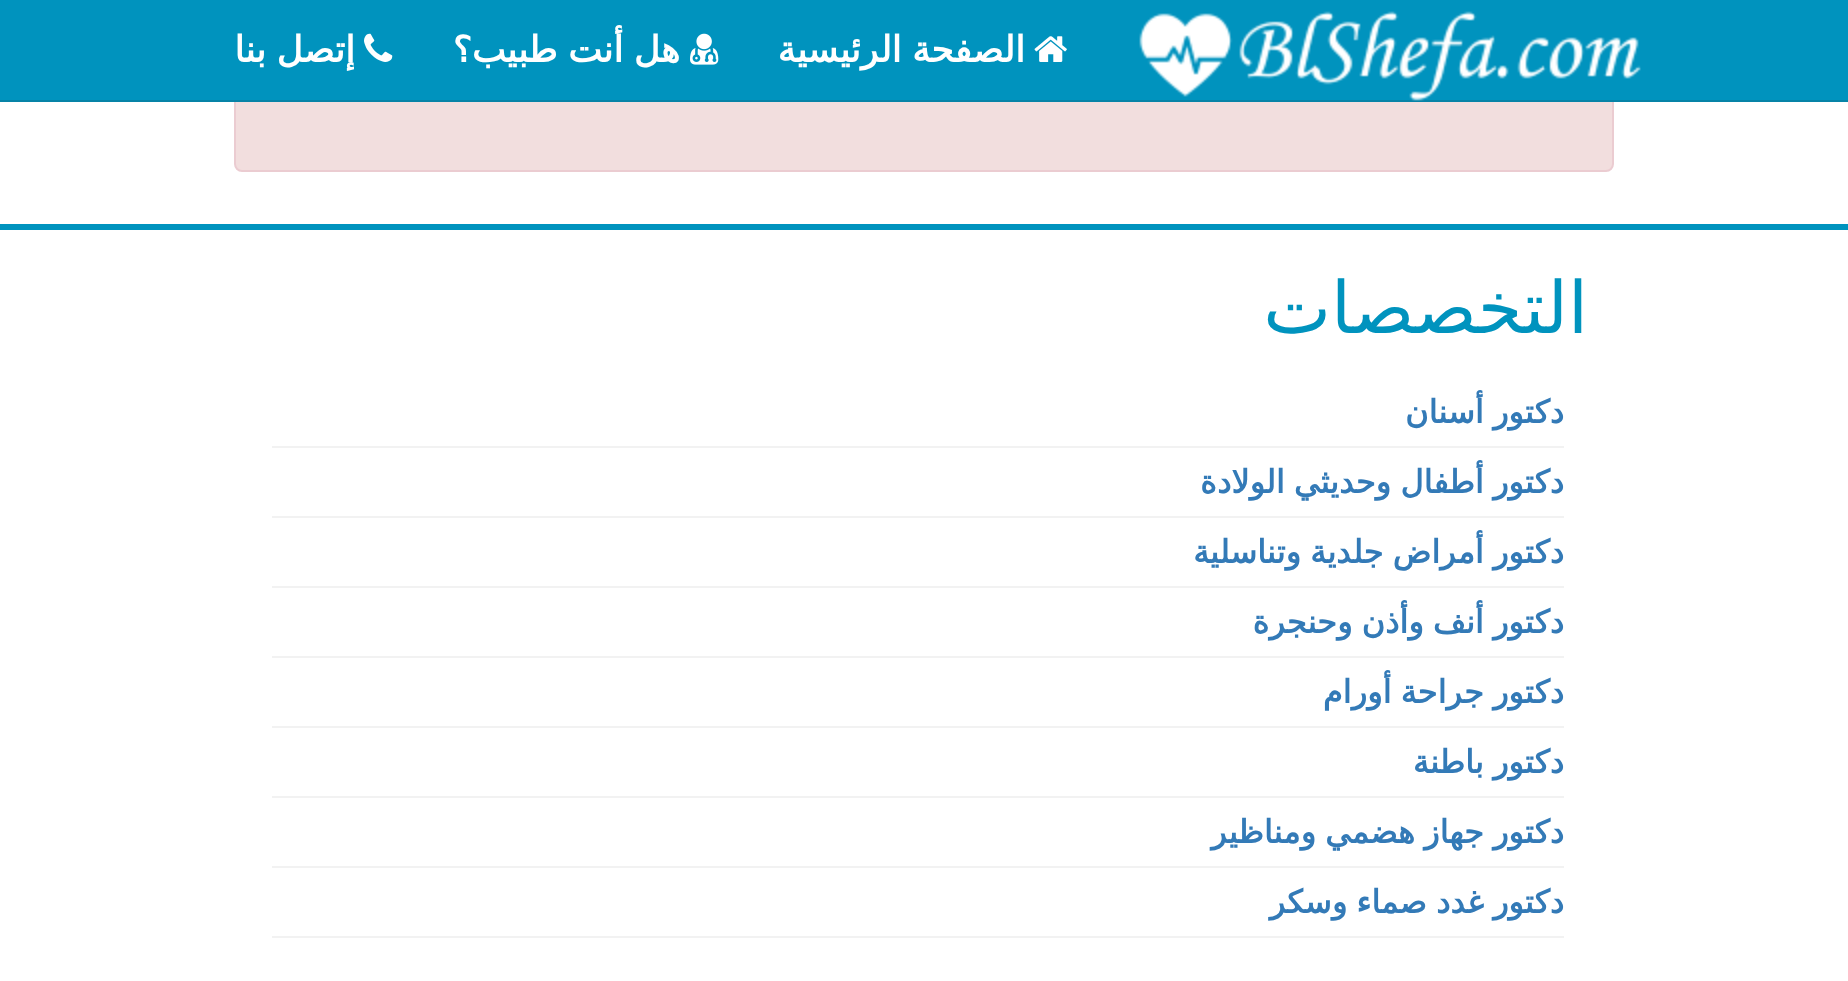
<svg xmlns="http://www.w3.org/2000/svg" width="1848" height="981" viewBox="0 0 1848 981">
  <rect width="100%" height="100%" fill="#ffffff"/>
  <rect x="235" y="41" width="1378" height="130" rx="7" fill="#f2dede" stroke="#ebccd1" stroke-width="2"/>
  <rect x="0" y="0" width="1848" height="100" fill="#0093be"/>
  <rect x="0" y="100" width="1848" height="2" fill="#0783a7"/>
  <image x="1139" y="11" width="502" height="90" href="img1.png"/>
  <image x="1034" y="36" width="33" height="26" href="img2.png"/>
  <text x="1025" y="62" word-spacing="-1" font-family="DejaVu Sans" font-size="36" font-weight="bold" direction="rtl" fill="#ffffff">الصفحة الرئيسية</text>
  <image x="690" y="33" width="29" height="32" href="img3.png"/>
  <text x="680" y="62" word-spacing="-1" font-family="DejaVu Sans" font-size="36" font-weight="bold" direction="rtl" fill="#ffffff">هل أنت طبيب؟</text>
  <image x="364" y="33" width="29" height="29" href="img4.png"/>
  <text x="355" y="62" word-spacing="-1" font-family="DejaVu Sans" font-size="36" font-weight="bold" direction="rtl" fill="#ffffff">إتصل بنا</text>
  <rect x="0" y="224" width="1848" height="6" fill="#0093be"/>
  <text x="1588" y="333" font-family="DejaVu Sans" font-size="72" direction="rtl" fill="#0093be">التخصصات</text>
  <rect x="272" y="446" width="1292" height="2" fill="#f2f2f2"/>
  <text x="1564" y="423" word-spacing="-1" font-family="DejaVu Sans" font-size="32" font-weight="bold" direction="rtl" fill="#337ab7">دكتور أسنان</text>
  <rect x="272" y="516" width="1292" height="2" fill="#f2f2f2"/>
  <text x="1564" y="493" word-spacing="-1" font-family="DejaVu Sans" font-size="32" font-weight="bold" direction="rtl" fill="#337ab7">دكتور أطفال وحديثي الولادة</text>
  <rect x="272" y="586" width="1292" height="2" fill="#f2f2f2"/>
  <text x="1564" y="563" word-spacing="-1" font-family="DejaVu Sans" font-size="32" font-weight="bold" direction="rtl" fill="#337ab7">دكتور أمراض جلدية وتناسلية</text>
  <rect x="272" y="656" width="1292" height="2" fill="#f2f2f2"/>
  <text x="1564" y="633" word-spacing="-1" font-family="DejaVu Sans" font-size="32" font-weight="bold" direction="rtl" fill="#337ab7">دكتور أنف وأذن وحنجرة</text>
  <rect x="272" y="726" width="1292" height="2" fill="#f2f2f2"/>
  <text x="1564" y="703" word-spacing="-1" font-family="DejaVu Sans" font-size="32" font-weight="bold" direction="rtl" fill="#337ab7">دكتور جراحة أورام</text>
  <rect x="272" y="796" width="1292" height="2" fill="#f2f2f2"/>
  <text x="1564" y="773" word-spacing="-1" font-family="DejaVu Sans" font-size="32" font-weight="bold" direction="rtl" fill="#337ab7">دكتور باطنة</text>
  <rect x="272" y="866" width="1292" height="2" fill="#f2f2f2"/>
  <text x="1564" y="843" word-spacing="-1" font-family="DejaVu Sans" font-size="32" font-weight="bold" direction="rtl" fill="#337ab7">دكتور جهاز هضمي ومناظير</text>
  <rect x="272" y="936" width="1292" height="2" fill="#f2f2f2"/>
  <text x="1564" y="913" word-spacing="-1" font-family="DejaVu Sans" font-size="32" font-weight="bold" direction="rtl" fill="#337ab7">دكتور غدد صماء وسكر</text>
</svg>
